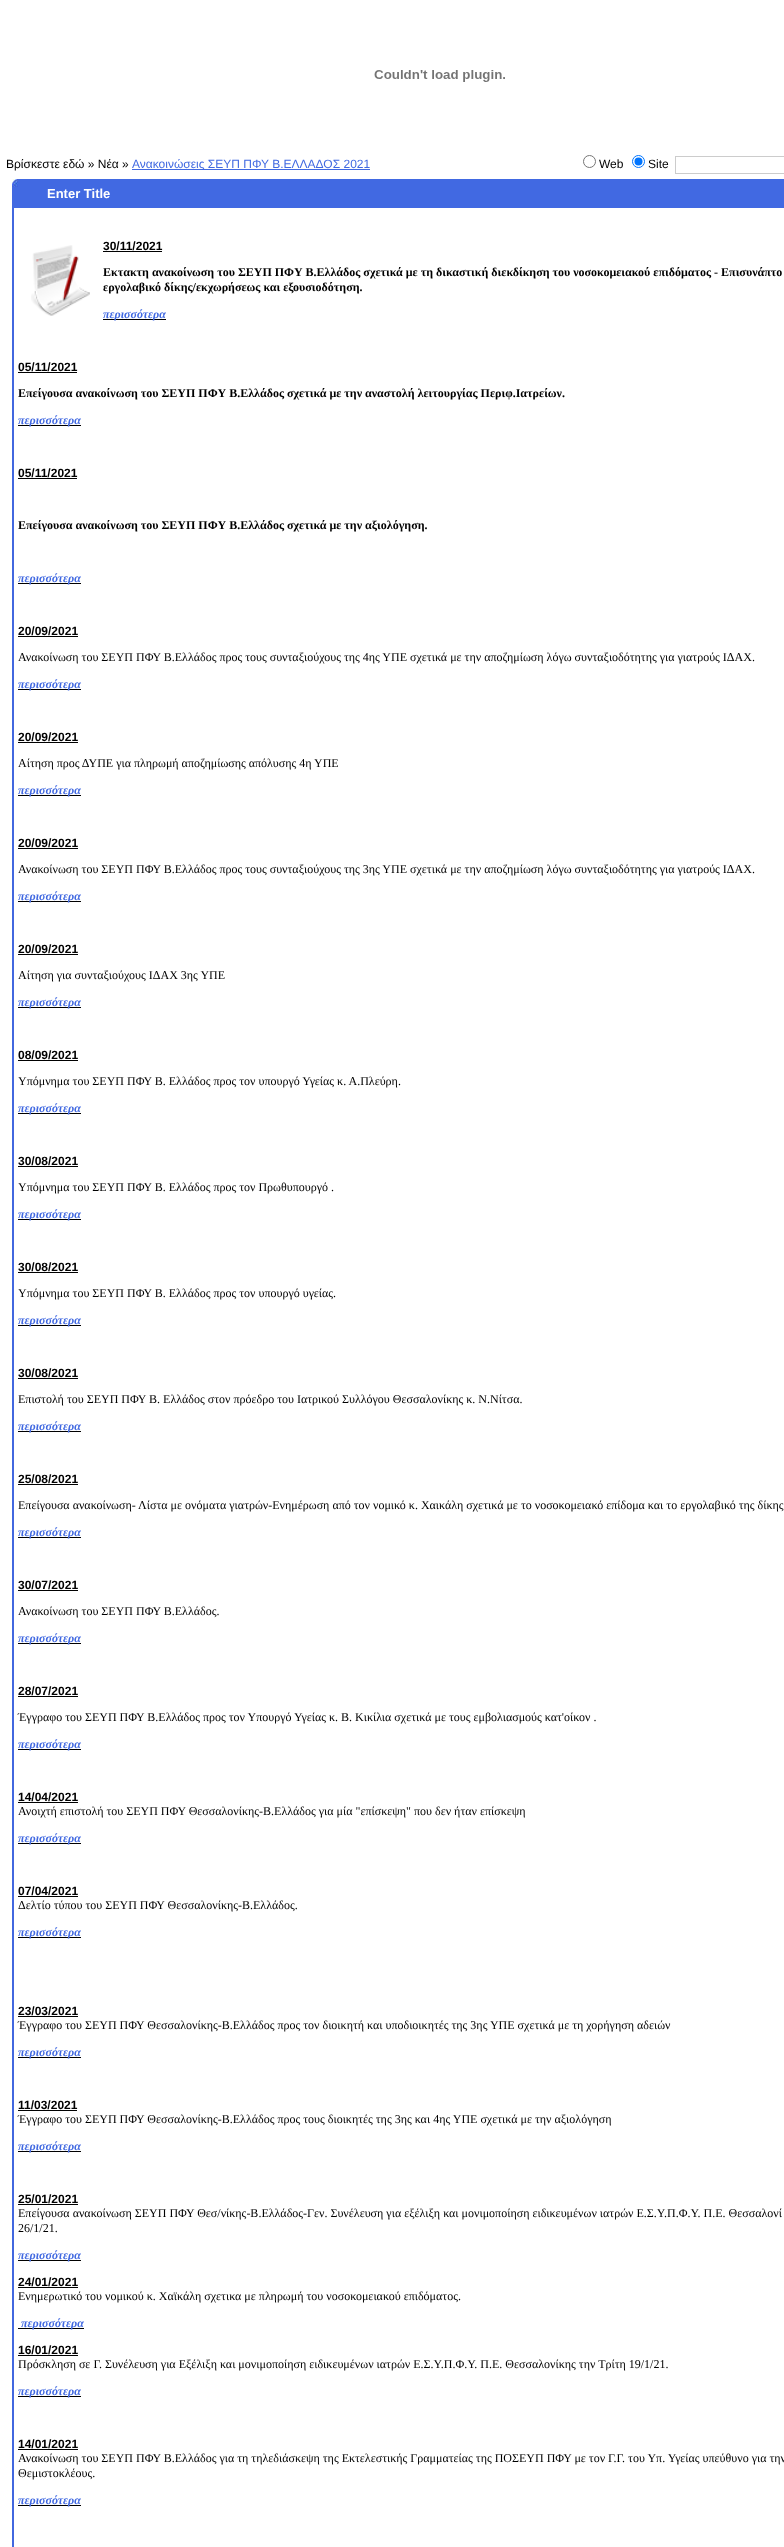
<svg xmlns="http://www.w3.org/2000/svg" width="784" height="2547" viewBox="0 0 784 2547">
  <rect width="100%" height="100%" fill="#ffffff"/>
  <image x="374" y="70" width="131" height="12" href="img1.png"/>
  <text x="6" y="168" font-family="Liberation Sans" font-size="12" fill="#000000">Βρίσκεστε εδώ » Νέα »</text>
  <rect x="132" y="169" width="238" height="1" fill="#4169e1"/>
  <text x="132" y="168" font-family="Liberation Sans" font-size="12" fill="#4169e1">Ανακοινώσεις ΣΕΥΠ ΠΦΥ Β.ΕΛΛΑΔΟΣ 2021</text>
  <circle cx="589.5" cy="161.5" r="6" fill="none" stroke="#767676"/>
  <text x="599" y="168" font-family="Liberation Sans" font-size="12" fill="#000000">Web</text>
  <circle cx="638.5" cy="161.5" r="6" fill="none" stroke="#0075ff"/>
  <circle cx="638.5" cy="161.5" r="4" fill="#0075ff"/>
  <text x="648" y="168" font-family="Liberation Sans" font-size="12" fill="#000000">Site</text>
  <rect x="675.5" y="156.5" width="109" height="17" fill="none" stroke="#cccccc"/>
  <image x="12" y="179" width="6" height="29" href="img2.png"/>
  <rect x="18" y="179" width="766" height="29" fill="#4169e2"/>
  <text x="47" y="198" font-family="Liberation Sans" font-size="13" font-weight="bold" fill="#ffffff">Enter Title</text>
  <image x="12" y="208" width="2" height="2339" href="img3.png"/>
  <image x="31" y="245" width="59" height="71" href="img4.png"/>
  <text x="103" y="250" font-family="Liberation Sans" font-size="12" font-weight="bold" fill="#000000">30/11/2021</text>
  <rect x="103" y="251" width="59" height="1" fill="#000000"/>
  <text x="103" y="276" font-family="Liberation Serif" font-size="12" font-weight="bold" fill="#000000">Εκτακτη ανακοίνωση του ΣΕΥΠ ΠΦΥ Β.Ελλάδος σχετικά με τη δικαστική διεκδίκηση του νοσοκομειακού επιδόματος - Επισυνάπτο</text>
  <text x="103" y="291" font-family="Liberation Serif" font-size="12" font-weight="bold" fill="#000000">εργολαβικό δίκης/εκχωρήσεως και εξουσιοδότηση.</text>
  <rect x="103" y="319" width="63" height="1" fill="#000000"/>
  <text x="103" y="318" font-family="Liberation Serif" font-size="12" font-weight="bold" font-style="italic" fill="#4169e1">περισσότερα</text>
  <text x="18" y="371" font-family="Liberation Sans" font-size="12" font-weight="bold" fill="#000000">05/11/2021</text>
  <rect x="18" y="372" width="59" height="1" fill="#000000"/>
  <text x="18" y="397" font-family="Liberation Serif" font-size="12" font-weight="bold" fill="#000000">Επείγουσα ανακοίνωση του ΣΕΥΠ ΠΦΥ Β.Ελλάδος σχετικά με την αναστολή λειτουργίας Περιφ.Ιατρείων.</text>
  <rect x="18" y="425" width="63" height="1" fill="#000000"/>
  <text x="18" y="424" font-family="Liberation Serif" font-size="12" font-weight="bold" font-style="italic" fill="#4169e1">περισσότερα</text>
  <text x="18" y="477" font-family="Liberation Sans" font-size="12" font-weight="bold" fill="#000000">05/11/2021</text>
  <rect x="18" y="478" width="59" height="1" fill="#000000"/>
  <text x="18" y="529" font-family="Liberation Serif" font-size="12" font-weight="bold" fill="#000000">Επείγουσα ανακοίνωση του ΣΕΥΠ ΠΦΥ Β.Ελλάδος σχετικά με την αξιολόγηση.</text>
  <rect x="18" y="583" width="63" height="1" fill="#000000"/>
  <text x="18" y="582" font-family="Liberation Serif" font-size="12" font-weight="bold" font-style="italic" fill="#4169e1">περισσότερα</text>
  <text x="18" y="635" font-family="Liberation Sans" font-size="12" font-weight="bold" fill="#000000">20/09/2021</text>
  <rect x="18" y="636" width="60" height="1" fill="#000000"/>
  <text x="18" y="661" font-family="Liberation Serif" font-size="12" fill="#000000">Ανακοίνωση του ΣΕΥΠ ΠΦΥ Β.Ελλάδος προς τους συνταξιούχους της 4ης ΥΠΕ σχετικά με την αποζημίωση λόγω συνταξιοδότητης για γιατρούς ΙΔΑΧ.</text>
  <rect x="18" y="689" width="63" height="1" fill="#000000"/>
  <text x="18" y="688" font-family="Liberation Serif" font-size="12" font-weight="bold" font-style="italic" fill="#4169e1">περισσότερα</text>
  <text x="18" y="741" font-family="Liberation Sans" font-size="12" font-weight="bold" fill="#000000">20/09/2021</text>
  <rect x="18" y="742" width="60" height="1" fill="#000000"/>
  <text x="18" y="767" font-family="Liberation Serif" font-size="12" fill="#000000">Αίτηση προς ΔΥΠΕ για πληρωμή αποζημίωσης απόλυσης 4η ΥΠΕ</text>
  <rect x="18" y="795" width="63" height="1" fill="#000000"/>
  <text x="18" y="794" font-family="Liberation Serif" font-size="12" font-weight="bold" font-style="italic" fill="#4169e1">περισσότερα</text>
  <text x="18" y="847" font-family="Liberation Sans" font-size="12" font-weight="bold" fill="#000000">20/09/2021</text>
  <rect x="18" y="848" width="60" height="1" fill="#000000"/>
  <text x="18" y="873" font-family="Liberation Serif" font-size="12" fill="#000000">Ανακοίνωση του ΣΕΥΠ ΠΦΥ Β.Ελλάδος προς τους συνταξιούχους της 3ης ΥΠΕ σχετικά με την αποζημίωση λόγω συνταξιοδότητης για γιατρούς ΙΔΑΧ.</text>
  <rect x="18" y="901" width="63" height="1" fill="#000000"/>
  <text x="18" y="900" font-family="Liberation Serif" font-size="12" font-weight="bold" font-style="italic" fill="#4169e1">περισσότερα</text>
  <text x="18" y="953" font-family="Liberation Sans" font-size="12" font-weight="bold" fill="#000000">20/09/2021</text>
  <rect x="18" y="954" width="60" height="1" fill="#000000"/>
  <text x="18" y="979" font-family="Liberation Serif" font-size="12" fill="#000000">Αίτηση για συνταξιούχους ΙΔΑΧ 3ης ΥΠΕ</text>
  <rect x="18" y="1007" width="63" height="1" fill="#000000"/>
  <text x="18" y="1006" font-family="Liberation Serif" font-size="12" font-weight="bold" font-style="italic" fill="#4169e1">περισσότερα</text>
  <text x="18" y="1059" font-family="Liberation Sans" font-size="12" font-weight="bold" fill="#000000">08/09/2021</text>
  <rect x="18" y="1060" width="60" height="1" fill="#000000"/>
  <text x="18" y="1085" font-family="Liberation Serif" font-size="12" fill="#000000">Υπόμνημα του ΣΕΥΠ ΠΦΥ Β. Ελλάδος προς τον υπουργό Υγείας κ. Α.Πλεύρη.</text>
  <rect x="18" y="1113" width="63" height="1" fill="#000000"/>
  <text x="18" y="1112" font-family="Liberation Serif" font-size="12" font-weight="bold" font-style="italic" fill="#4169e1">περισσότερα</text>
  <text x="18" y="1165" font-family="Liberation Sans" font-size="12" font-weight="bold" fill="#000000">30/08/2021</text>
  <rect x="18" y="1166" width="60" height="1" fill="#000000"/>
  <text x="18" y="1191" font-family="Liberation Serif" font-size="12" fill="#000000">Υπόμνημα του ΣΕΥΠ ΠΦΥ Β. Ελλάδος προς τον Πρωθυπουργό .</text>
  <rect x="18" y="1219" width="63" height="1" fill="#000000"/>
  <text x="18" y="1218" font-family="Liberation Serif" font-size="12" font-weight="bold" font-style="italic" fill="#4169e1">περισσότερα</text>
  <text x="18" y="1271" font-family="Liberation Sans" font-size="12" font-weight="bold" fill="#000000">30/08/2021</text>
  <rect x="18" y="1272" width="60" height="1" fill="#000000"/>
  <text x="18" y="1297" font-family="Liberation Serif" font-size="12" fill="#000000">Υπόμνημα του ΣΕΥΠ ΠΦΥ Β. Ελλάδος προς τον υπουργό υγείας.</text>
  <rect x="18" y="1325" width="63" height="1" fill="#000000"/>
  <text x="18" y="1324" font-family="Liberation Serif" font-size="12" font-weight="bold" font-style="italic" fill="#4169e1">περισσότερα</text>
  <text x="18" y="1377" font-family="Liberation Sans" font-size="12" font-weight="bold" fill="#000000">30/08/2021</text>
  <rect x="18" y="1378" width="60" height="1" fill="#000000"/>
  <text x="18" y="1403" font-family="Liberation Serif" font-size="12" fill="#000000">Επιστολή του ΣΕΥΠ ΠΦΥ Β. Ελλάδος στον πρόεδρο του Ιατρικού Συλλόγου Θεσσαλονίκης κ. Ν.Νίτσα.</text>
  <rect x="18" y="1431" width="63" height="1" fill="#000000"/>
  <text x="18" y="1430" font-family="Liberation Serif" font-size="12" font-weight="bold" font-style="italic" fill="#4169e1">περισσότερα</text>
  <text x="18" y="1483" font-family="Liberation Sans" font-size="12" font-weight="bold" fill="#000000">25/08/2021</text>
  <rect x="18" y="1484" width="60" height="1" fill="#000000"/>
  <text x="18" y="1509" font-family="Liberation Serif" font-size="12" fill="#000000">Επείγουσα ανακοίνωση- Λίστα με ονόματα γιατρών-Ενημέρωση από τον νομικό κ. Χαικάλη σχετικά με το νοσοκομειακό επίδομα και το εργολαβικό της δίκης</text>
  <rect x="18" y="1537" width="63" height="1" fill="#000000"/>
  <text x="18" y="1536" font-family="Liberation Serif" font-size="12" font-weight="bold" font-style="italic" fill="#4169e1">περισσότερα</text>
  <text x="18" y="1589" font-family="Liberation Sans" font-size="12" font-weight="bold" fill="#000000">30/07/2021</text>
  <rect x="18" y="1590" width="60" height="1" fill="#000000"/>
  <text x="18" y="1615" font-family="Liberation Serif" font-size="12" fill="#000000">Ανακοίνωση του ΣΕΥΠ ΠΦΥ Β.Ελλάδος.</text>
  <rect x="18" y="1643" width="63" height="1" fill="#000000"/>
  <text x="18" y="1642" font-family="Liberation Serif" font-size="12" font-weight="bold" font-style="italic" fill="#4169e1">περισσότερα</text>
  <text x="18" y="1695" font-family="Liberation Sans" font-size="12" font-weight="bold" fill="#000000">28/07/2021</text>
  <rect x="18" y="1696" width="60" height="1" fill="#000000"/>
  <text x="18" y="1721" font-family="Liberation Serif" font-size="12" fill="#000000">Έγγραφο του ΣΕΥΠ ΠΦΥ Β.Ελλάδος προς τον Υπουργό Υγείας κ. Β. Κικίλια σχετικά με τους εμβολιασμούς κατ'οίκον .</text>
  <rect x="18" y="1749" width="63" height="1" fill="#000000"/>
  <text x="18" y="1748" font-family="Liberation Serif" font-size="12" font-weight="bold" font-style="italic" fill="#4169e1">περισσότερα</text>
  <text x="18" y="1801" font-family="Liberation Sans" font-size="12" font-weight="bold" fill="#000000">14/04/2021</text>
  <rect x="18" y="1802" width="60" height="1" fill="#000000"/>
  <text x="18" y="1815" font-family="Liberation Serif" font-size="12" fill="#000000">Ανοιχτή επιστολή του ΣΕΥΠ ΠΦΥ Θεσσαλονίκης-Β.Ελλάδος για μία "επίσκεψη" που δεν ήταν επίσκεψη</text>
  <rect x="18" y="1843" width="63" height="1" fill="#000000"/>
  <text x="18" y="1842" font-family="Liberation Serif" font-size="12" font-weight="bold" font-style="italic" fill="#4169e1">περισσότερα</text>
  <text x="18" y="1895" font-family="Liberation Sans" font-size="12" font-weight="bold" fill="#000000">07/04/2021</text>
  <rect x="18" y="1896" width="60" height="1" fill="#000000"/>
  <text x="18" y="1909" font-family="Liberation Serif" font-size="12" fill="#000000">Δελτίο τύπου του ΣΕΥΠ ΠΦΥ Θεσσαλονίκης-Β.Ελλάδος.</text>
  <rect x="18" y="1937" width="63" height="1" fill="#000000"/>
  <text x="18" y="1936" font-family="Liberation Serif" font-size="12" font-weight="bold" font-style="italic" fill="#4169e1">περισσότερα</text>
  <text x="18" y="2015" font-family="Liberation Sans" font-size="12" font-weight="bold" fill="#000000">23/03/2021</text>
  <rect x="18" y="2016" width="60" height="1" fill="#000000"/>
  <text x="18" y="2029" font-family="Liberation Serif" font-size="12" fill="#000000">Έγγραφο του ΣΕΥΠ ΠΦΥ Θεσσαλονίκης-Β.Ελλάδος προς τον διοικητή και υποδιοικητές της 3ης ΥΠΕ σχετικά με τη χορήγηση αδειών</text>
  <rect x="18" y="2057" width="63" height="1" fill="#000000"/>
  <text x="18" y="2056" font-family="Liberation Serif" font-size="12" font-weight="bold" font-style="italic" fill="#4169e1">περισσότερα</text>
  <text x="18" y="2109" font-family="Liberation Sans" font-size="12" font-weight="bold" fill="#000000">11/03/2021</text>
  <rect x="18" y="2110" width="59" height="1" fill="#000000"/>
  <text x="18" y="2123" font-family="Liberation Serif" font-size="12" fill="#000000">Έγγραφο του ΣΕΥΠ ΠΦΥ Θεσσαλονίκης-Β.Ελλάδος προς τους διοικητές της 3ης και 4ης ΥΠΕ σχετικά με την αξιολόγηση</text>
  <rect x="18" y="2151" width="63" height="1" fill="#000000"/>
  <text x="18" y="2150" font-family="Liberation Serif" font-size="12" font-weight="bold" font-style="italic" fill="#4169e1">περισσότερα</text>
  <text x="18" y="2203" font-family="Liberation Sans" font-size="12" font-weight="bold" fill="#000000">25/01/2021</text>
  <rect x="18" y="2204" width="60" height="1" fill="#000000"/>
  <text x="18" y="2217" font-family="Liberation Serif" font-size="12" fill="#000000">Επείγουσα ανακοίνωση ΣΕΥΠ ΠΦΥ Θεσ/νίκης-Β.Ελλάδος-Γεν. Συνέλευση για εξέλιξη και μονιμοποίηση ειδικευμένων ιατρών Ε.Σ.Υ.Π.Φ.Υ. Π.Ε. Θεσσαλονί</text>
  <text x="18" y="2232" font-family="Liberation Serif" font-size="12" fill="#000000">26/1/21.</text>
  <rect x="18" y="2260" width="63" height="1" fill="#000000"/>
  <text x="18" y="2259" font-family="Liberation Serif" font-size="12" font-weight="bold" font-style="italic" fill="#4169e1">περισσότερα</text>
  <text x="18" y="2286" font-family="Liberation Sans" font-size="12" font-weight="bold" fill="#000000">24/01/2021</text>
  <rect x="18" y="2287" width="60" height="1" fill="#000000"/>
  <text x="18" y="2300" font-family="Liberation Serif" font-size="12" fill="#000000">Ενημερωτικό του νομικού κ. Χαϊκάλη σχετικα με πληρωμή του νοσοκομειακού επιδόματος.</text>
  <rect x="18" y="2328" width="66" height="1" fill="#000000"/>
  <text x="21" y="2327" font-family="Liberation Serif" font-size="12" font-weight="bold" font-style="italic" fill="#4169e1">περισσότερα</text>
  <text x="18" y="2354" font-family="Liberation Sans" font-size="12" font-weight="bold" fill="#000000">16/01/2021</text>
  <rect x="18" y="2355" width="60" height="1" fill="#000000"/>
  <text x="18" y="2368" font-family="Liberation Serif" font-size="12" fill="#000000">Πρόσκληση σε Γ. Συνέλευση για Εξέλιξη και μονιμοποίηση ειδικευμένων ιατρών Ε.Σ.Υ.Π.Φ.Υ. Π.Ε. Θεσσαλονίκης την Τρίτη 19/1/21.</text>
  <rect x="18" y="2396" width="63" height="1" fill="#000000"/>
  <text x="18" y="2395" font-family="Liberation Serif" font-size="12" font-weight="bold" font-style="italic" fill="#4169e1">περισσότερα</text>
  <text x="18" y="2448" font-family="Liberation Sans" font-size="12" font-weight="bold" fill="#000000">14/01/2021</text>
  <rect x="18" y="2449" width="60" height="1" fill="#000000"/>
  <text x="18" y="2462" font-family="Liberation Serif" font-size="12" fill="#000000">Ανακοίνωση του ΣΕΥΠ ΠΦΥ Β.Ελλάδος για τη τηλεδιάσκεψη της Εκτελεστικής Γραμματείας της ΠΟΣΕΥΠ ΠΦΥ με τον Γ.Γ. του Υπ. Υγείας υπεύθυνο για την</text>
  <text x="18" y="2477" font-family="Liberation Serif" font-size="12" fill="#000000">Θεμιστοκλέους.</text>
  <rect x="18" y="2505" width="63" height="1" fill="#000000"/>
  <text x="18" y="2504" font-family="Liberation Serif" font-size="12" font-weight="bold" font-style="italic" fill="#4169e1">περισσότερα</text>
</svg>
